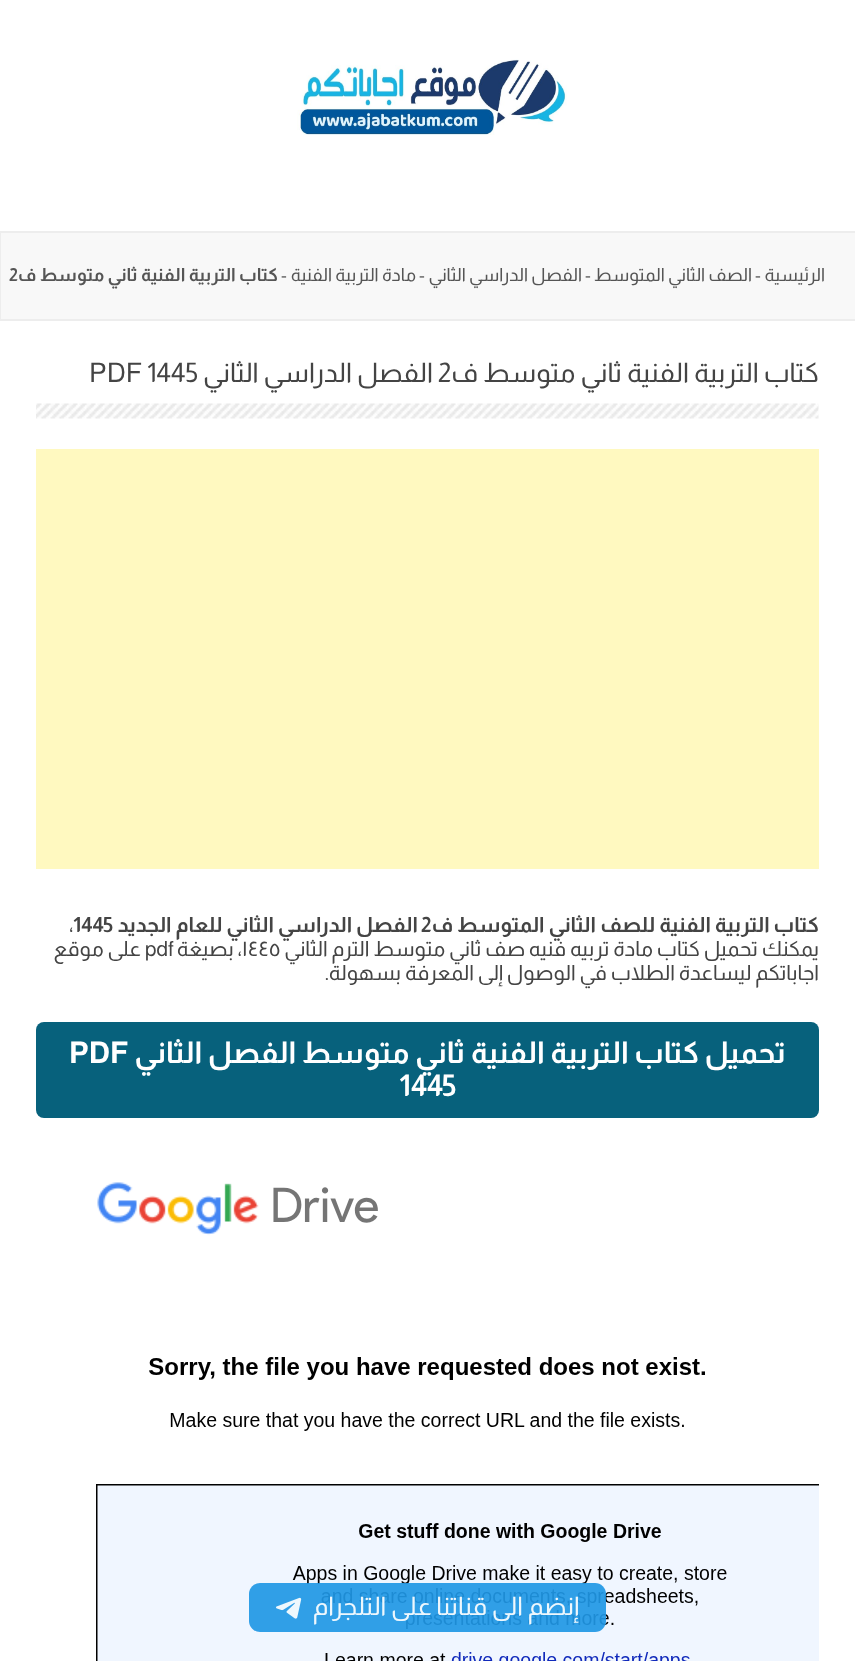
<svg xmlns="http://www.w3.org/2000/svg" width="855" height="1661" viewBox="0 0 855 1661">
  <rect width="100%" height="100%" fill="#ffffff"/>
  <image x="297" y="59" width="270" height="76" href="img1.png"/>
  <rect x="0" y="232" width="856" height="88" fill="#f8f8f8" stroke="#ededed" stroke-width="2"/>
  <text x="825" y="281" font-family="Almarai" font-size="18" direction="rtl" fill="#555555">الرئيسية</text>
  <text x="755" y="281" font-family="Almarai" font-size="18" fill="#555555">-</text>
  <text x="752" y="281" font-family="Almarai" font-size="18" direction="rtl" fill="#555555">الصف الثاني المتوسط</text>
  <text x="585" y="281" font-family="Almarai" font-size="18" fill="#555555">-</text>
  <text x="582" y="281" font-family="Almarai" font-size="18" direction="rtl" fill="#555555">الفصل الدراسي الثاني</text>
  <text x="419" y="281" font-family="Almarai" font-size="18" fill="#555555">-</text>
  <text x="416" y="281" font-family="Almarai" font-size="18" direction="rtl" fill="#555555">مادة التربية الفنية</text>
  <text x="281" y="281" font-family="Almarai" font-size="18" fill="#555555">-</text>
  <text x="278" y="281" font-family="Almarai" font-size="18" font-weight="bold" direction="rtl" fill="#555555">كتاب التربية الفنية ثاني متوسط ف</text>
  <text x="9" y="281" font-family="Almarai" font-size="18" font-weight="bold" fill="#555555">2</text>
  <image x="36" y="403" width="783" height="16" href="img2.png"/>
  <text x="819" y="382" font-family="Almarai" font-size="27" direction="rtl" fill="#444444">كتاب التربية الفنية ثاني متوسط ف</text>
  <text x="438" y="382" font-family="Almarai" font-size="27" fill="#444444">2</text>
  <text x="433" y="382" font-family="Almarai" font-size="27" direction="rtl" fill="#444444">الفصل الدراسي الثاني</text>
  <text x="89" y="382" font-family="Almarai" font-size="27" fill="#444444">PDF 1445</text>
  <rect x="36" y="449" width="783" height="420" fill="#fff9c0"/>
  <text x="819" y="932" font-family="Almarai" font-size="21" font-weight="bold" direction="rtl" fill="#444444">كتاب التربية الفنية للصف الثاني المتوسط ف</text>
  <text x="421" y="932" font-family="Almarai" font-size="21" font-weight="bold" fill="#444444">2</text>
  <text x="418" y="932" font-family="Almarai" font-size="21" font-weight="bold" direction="rtl" fill="#444444">الفصل الدراسي الثاني للعام الجديد</text>
  <text x="73" y="932" font-family="Almarai" font-size="21" font-weight="bold" fill="#444444">1445</text>
  <text x="69" y="932" font-family="Almarai" font-size="21" fill="#444444">،</text>
  <text x="819" y="956" font-family="Almarai" font-size="21" direction="rtl" fill="#444444">يمكنك تحميل كتاب مادة تربيه فنيه صف ثاني متوسط الترم الثاني</text>
  <text x="242" y="956" font-family="Almarai" font-size="21" fill="#444444">١٤٤٥</text>
  <text x="242" y="956" font-family="Almarai" font-size="21" direction="rtl" fill="#444444">، بصيغة</text>
  <text x="145" y="956" font-family="Almarai" font-size="21" fill="#444444">pdf</text>
  <text x="141" y="956" font-family="Almarai" font-size="21" direction="rtl" fill="#444444">على موقع</text>
  <text x="819" y="980" font-family="Almarai" font-size="21" direction="rtl" fill="#444444">اجاباتكم ليساعدة الطلاب في الوصول إلى المعرفة بسهولة.</text>
  <rect x="36" y="1022" width="783" height="96" rx="8" fill="#07617c"/>
  <text x="786" y="1063" font-family="Almarai" font-size="30" font-weight="bold" direction="rtl" fill="#ffffff">تحميل كتاب التربية الفنية ثاني متوسط الفصل الثاني</text>
  <text x="69" y="1063" font-family="Almarai" font-size="30" font-weight="bold" fill="#ffffff">PDF</text>
  <text x="399" y="1096" font-family="Almarai" font-size="30" font-weight="bold" fill="#ffffff">1445</text>
  <image x="96" y="1182" width="723" height="479" href="img3.png"/>
  <rect x="249" y="1583" width="357" height="49" rx="11" fill="#1f97e5" fill-opacity="0.92"/>
  <text x="579" y="1615" font-family="Almarai" font-size="25.5" direction="rtl" fill="#eef7fd">إنضم الى قناتنا على التلجرام</text>
  <image x="276" y="1597" width="26" height="22" href="img4.png"/>
</svg>
